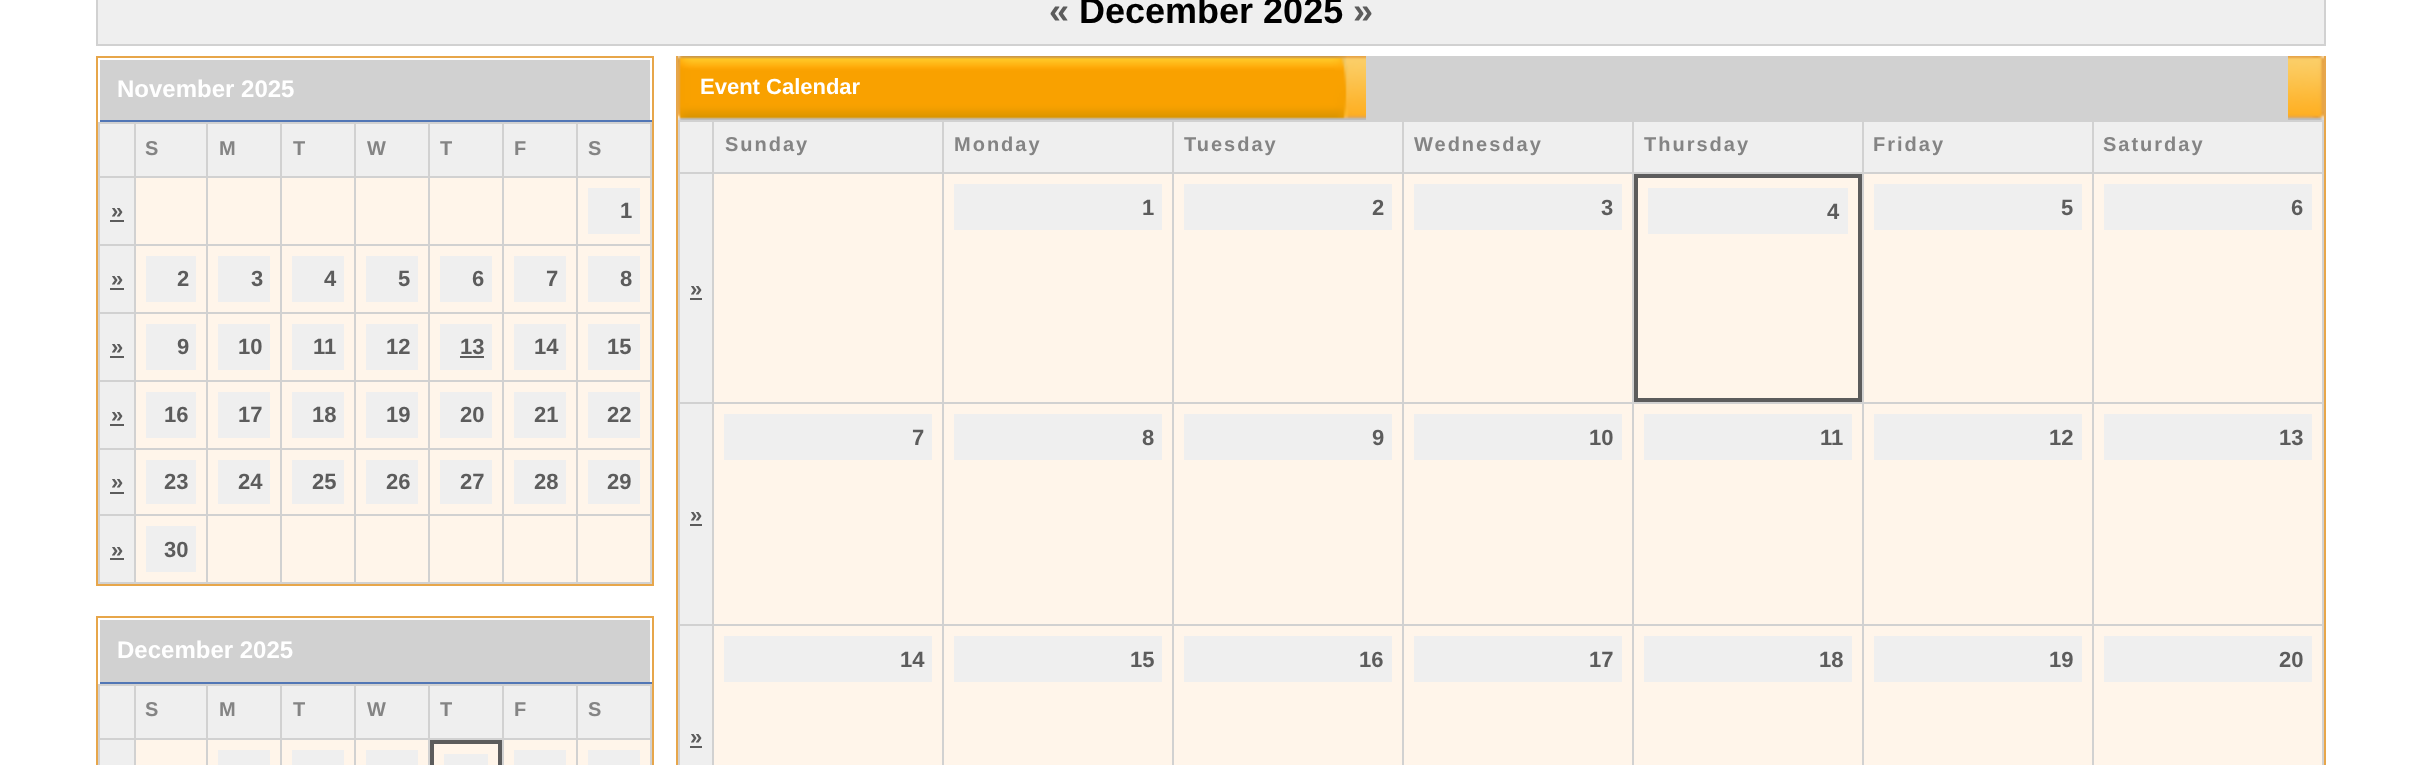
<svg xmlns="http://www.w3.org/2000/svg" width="2422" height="765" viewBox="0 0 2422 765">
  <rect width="100%" height="100%" fill="#ffffff"/>
  <rect x="97" y="-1" width="2228" height="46" fill="#efefef" stroke="#d1d1d1" stroke-width="2"/>
  <text x="1049" y="23" font-family="Liberation Sans" font-size="36" font-weight="bold" fill="#5c5c5c">«</text>
  <text x="1079" y="23" font-family="Liberation Sans" font-size="36" font-weight="bold" fill="#000000">December 2025</text>
  <text x="1353" y="23" font-family="Liberation Sans" font-size="36" font-weight="bold" fill="#5c5c5c">»</text>
  <rect x="98" y="60" width="554" height="524" fill="#d1d1d1"/>
  <rect x="97" y="57" width="556" height="528" fill="none" stroke="#e7a64a" stroke-width="2"/>
  <rect x="650" y="58" width="2" height="64" fill="#ffffff"/>
  <rect x="98" y="120" width="554" height="2" fill="#5176b5"/>
  <rect x="98" y="58" width="2" height="64" fill="#ffffff"/>
  <text x="117" y="97" font-family="Liberation Sans" font-size="24" font-weight="bold" fill="#ffffff">November 2025</text>
  <rect x="100" y="124" width="34" height="52" fill="#efefef"/>
  <rect x="136" y="124" width="70" height="52" fill="#efefef"/>
  <text x="145" y="155" font-family="Liberation Sans" font-size="20" font-weight="bold" letter-spacing="2" fill="#848484">S</text>
  <rect x="208" y="124" width="72" height="52" fill="#efefef"/>
  <text x="219" y="155" font-family="Liberation Sans" font-size="20" font-weight="bold" letter-spacing="2" fill="#848484">M</text>
  <rect x="282" y="124" width="72" height="52" fill="#efefef"/>
  <text x="293" y="155" font-family="Liberation Sans" font-size="20" font-weight="bold" letter-spacing="2" fill="#848484">T</text>
  <rect x="356" y="124" width="72" height="52" fill="#efefef"/>
  <text x="367" y="155" font-family="Liberation Sans" font-size="20" font-weight="bold" letter-spacing="2" fill="#848484">W</text>
  <rect x="430" y="124" width="72" height="52" fill="#efefef"/>
  <text x="440" y="155" font-family="Liberation Sans" font-size="20" font-weight="bold" letter-spacing="2" fill="#848484">T</text>
  <rect x="504" y="124" width="72" height="52" fill="#efefef"/>
  <text x="514" y="155" font-family="Liberation Sans" font-size="20" font-weight="bold" letter-spacing="2" fill="#848484">F</text>
  <rect x="578" y="124" width="72" height="52" fill="#efefef"/>
  <text x="588" y="155" font-family="Liberation Sans" font-size="20" font-weight="bold" letter-spacing="2" fill="#848484">S</text>
  <rect x="100" y="178" width="34" height="66" fill="#efefef"/>
  <text x="111" y="218" font-family="Liberation Sans" font-size="22" font-weight="bold" fill="#5c5c5c">»</text>
  <rect x="110" y="220" width="14" height="2" fill="#5c5c5c"/>
  <rect x="136" y="178" width="70" height="66" fill="#fff5ea"/>
  <rect x="208" y="178" width="72" height="66" fill="#fff5ea"/>
  <rect x="282" y="178" width="72" height="66" fill="#fff5ea"/>
  <rect x="356" y="178" width="72" height="66" fill="#fff5ea"/>
  <rect x="430" y="178" width="72" height="66" fill="#fff5ea"/>
  <rect x="504" y="178" width="72" height="66" fill="#fff5ea"/>
  <rect x="578" y="178" width="72" height="66" fill="#fff5ea"/>
  <rect x="588" y="188" width="52" height="46" fill="#efefef"/>
  <text x="620" y="218" font-family="Liberation Sans" font-size="22" font-weight="bold" fill="#5c5c5c">1</text>
  <rect x="100" y="246" width="34" height="66" fill="#efefef"/>
  <text x="111" y="286" font-family="Liberation Sans" font-size="22" font-weight="bold" fill="#5c5c5c">»</text>
  <rect x="110" y="288" width="14" height="2" fill="#5c5c5c"/>
  <rect x="136" y="246" width="70" height="66" fill="#fff5ea"/>
  <rect x="146" y="256" width="50" height="46" fill="#efefef"/>
  <text x="177" y="286" font-family="Liberation Sans" font-size="22" font-weight="bold" fill="#5c5c5c">2</text>
  <rect x="208" y="246" width="72" height="66" fill="#fff5ea"/>
  <rect x="218" y="256" width="52" height="46" fill="#efefef"/>
  <text x="251" y="286" font-family="Liberation Sans" font-size="22" font-weight="bold" fill="#5c5c5c">3</text>
  <rect x="282" y="246" width="72" height="66" fill="#fff5ea"/>
  <rect x="292" y="256" width="52" height="46" fill="#efefef"/>
  <text x="324" y="286" font-family="Liberation Sans" font-size="22" font-weight="bold" fill="#5c5c5c">4</text>
  <rect x="356" y="246" width="72" height="66" fill="#fff5ea"/>
  <rect x="366" y="256" width="52" height="46" fill="#efefef"/>
  <text x="398" y="286" font-family="Liberation Sans" font-size="22" font-weight="bold" fill="#5c5c5c">5</text>
  <rect x="430" y="246" width="72" height="66" fill="#fff5ea"/>
  <rect x="440" y="256" width="52" height="46" fill="#efefef"/>
  <text x="472" y="286" font-family="Liberation Sans" font-size="22" font-weight="bold" fill="#5c5c5c">6</text>
  <rect x="504" y="246" width="72" height="66" fill="#fff5ea"/>
  <rect x="514" y="256" width="52" height="46" fill="#efefef"/>
  <text x="546" y="286" font-family="Liberation Sans" font-size="22" font-weight="bold" fill="#5c5c5c">7</text>
  <rect x="578" y="246" width="72" height="66" fill="#fff5ea"/>
  <rect x="588" y="256" width="52" height="46" fill="#efefef"/>
  <text x="620" y="286" font-family="Liberation Sans" font-size="22" font-weight="bold" fill="#5c5c5c">8</text>
  <rect x="100" y="314" width="34" height="66" fill="#efefef"/>
  <text x="111" y="354" font-family="Liberation Sans" font-size="22" font-weight="bold" fill="#5c5c5c">»</text>
  <rect x="110" y="356" width="14" height="2" fill="#5c5c5c"/>
  <rect x="136" y="314" width="70" height="66" fill="#fff5ea"/>
  <rect x="146" y="324" width="50" height="46" fill="#efefef"/>
  <text x="177" y="354" font-family="Liberation Sans" font-size="22" font-weight="bold" fill="#5c5c5c">9</text>
  <rect x="208" y="314" width="72" height="66" fill="#fff5ea"/>
  <rect x="218" y="324" width="52" height="46" fill="#efefef"/>
  <text x="238" y="354" font-family="Liberation Sans" font-size="22" font-weight="bold" fill="#5c5c5c">10</text>
  <rect x="282" y="314" width="72" height="66" fill="#fff5ea"/>
  <rect x="292" y="324" width="52" height="46" fill="#efefef"/>
  <text x="313" y="354" font-family="Liberation Sans" font-size="22" font-weight="bold" fill="#5c5c5c">11</text>
  <rect x="356" y="314" width="72" height="66" fill="#fff5ea"/>
  <rect x="366" y="324" width="52" height="46" fill="#efefef"/>
  <text x="386" y="354" font-family="Liberation Sans" font-size="22" font-weight="bold" fill="#5c5c5c">12</text>
  <rect x="430" y="314" width="72" height="66" fill="#fff5ea"/>
  <rect x="440" y="324" width="52" height="46" fill="#efefef"/>
  <text x="460" y="354" font-family="Liberation Sans" font-size="22" font-weight="bold" fill="#5c5c5c">13</text>
  <rect x="460" y="356" width="24" height="2" fill="#5c5c5c"/>
  <rect x="504" y="314" width="72" height="66" fill="#fff5ea"/>
  <rect x="514" y="324" width="52" height="46" fill="#efefef"/>
  <text x="534" y="354" font-family="Liberation Sans" font-size="22" font-weight="bold" fill="#5c5c5c">14</text>
  <rect x="578" y="314" width="72" height="66" fill="#fff5ea"/>
  <rect x="588" y="324" width="52" height="46" fill="#efefef"/>
  <text x="607" y="354" font-family="Liberation Sans" font-size="22" font-weight="bold" fill="#5c5c5c">15</text>
  <rect x="100" y="382" width="34" height="66" fill="#efefef"/>
  <text x="111" y="422" font-family="Liberation Sans" font-size="22" font-weight="bold" fill="#5c5c5c">»</text>
  <rect x="110" y="424" width="14" height="2" fill="#5c5c5c"/>
  <rect x="136" y="382" width="70" height="66" fill="#fff5ea"/>
  <rect x="146" y="392" width="50" height="46" fill="#efefef"/>
  <text x="164" y="422" font-family="Liberation Sans" font-size="22" font-weight="bold" fill="#5c5c5c">16</text>
  <rect x="208" y="382" width="72" height="66" fill="#fff5ea"/>
  <rect x="218" y="392" width="52" height="46" fill="#efefef"/>
  <text x="238" y="422" font-family="Liberation Sans" font-size="22" font-weight="bold" fill="#5c5c5c">17</text>
  <rect x="282" y="382" width="72" height="66" fill="#fff5ea"/>
  <rect x="292" y="392" width="52" height="46" fill="#efefef"/>
  <text x="312" y="422" font-family="Liberation Sans" font-size="22" font-weight="bold" fill="#5c5c5c">18</text>
  <rect x="356" y="382" width="72" height="66" fill="#fff5ea"/>
  <rect x="366" y="392" width="52" height="46" fill="#efefef"/>
  <text x="386" y="422" font-family="Liberation Sans" font-size="22" font-weight="bold" fill="#5c5c5c">19</text>
  <rect x="430" y="382" width="72" height="66" fill="#fff5ea"/>
  <rect x="440" y="392" width="52" height="46" fill="#efefef"/>
  <text x="460" y="422" font-family="Liberation Sans" font-size="22" font-weight="bold" fill="#5c5c5c">20</text>
  <rect x="504" y="382" width="72" height="66" fill="#fff5ea"/>
  <rect x="514" y="392" width="52" height="46" fill="#efefef"/>
  <text x="534" y="422" font-family="Liberation Sans" font-size="22" font-weight="bold" fill="#5c5c5c">21</text>
  <rect x="578" y="382" width="72" height="66" fill="#fff5ea"/>
  <rect x="588" y="392" width="52" height="46" fill="#efefef"/>
  <text x="607" y="422" font-family="Liberation Sans" font-size="22" font-weight="bold" fill="#5c5c5c">22</text>
  <rect x="100" y="450" width="34" height="64" fill="#efefef"/>
  <text x="111" y="489" font-family="Liberation Sans" font-size="22" font-weight="bold" fill="#5c5c5c">»</text>
  <rect x="110" y="492" width="14" height="2" fill="#5c5c5c"/>
  <rect x="136" y="450" width="70" height="64" fill="#fff5ea"/>
  <rect x="146" y="460" width="50" height="44" fill="#efefef"/>
  <text x="164" y="489" font-family="Liberation Sans" font-size="22" font-weight="bold" fill="#5c5c5c">23</text>
  <rect x="208" y="450" width="72" height="64" fill="#fff5ea"/>
  <rect x="218" y="460" width="52" height="44" fill="#efefef"/>
  <text x="238" y="489" font-family="Liberation Sans" font-size="22" font-weight="bold" fill="#5c5c5c">24</text>
  <rect x="282" y="450" width="72" height="64" fill="#fff5ea"/>
  <rect x="292" y="460" width="52" height="44" fill="#efefef"/>
  <text x="312" y="489" font-family="Liberation Sans" font-size="22" font-weight="bold" fill="#5c5c5c">25</text>
  <rect x="356" y="450" width="72" height="64" fill="#fff5ea"/>
  <rect x="366" y="460" width="52" height="44" fill="#efefef"/>
  <text x="386" y="489" font-family="Liberation Sans" font-size="22" font-weight="bold" fill="#5c5c5c">26</text>
  <rect x="430" y="450" width="72" height="64" fill="#fff5ea"/>
  <rect x="440" y="460" width="52" height="44" fill="#efefef"/>
  <text x="460" y="489" font-family="Liberation Sans" font-size="22" font-weight="bold" fill="#5c5c5c">27</text>
  <rect x="504" y="450" width="72" height="64" fill="#fff5ea"/>
  <rect x="514" y="460" width="52" height="44" fill="#efefef"/>
  <text x="534" y="489" font-family="Liberation Sans" font-size="22" font-weight="bold" fill="#5c5c5c">28</text>
  <rect x="578" y="450" width="72" height="64" fill="#fff5ea"/>
  <rect x="588" y="460" width="52" height="44" fill="#efefef"/>
  <text x="607" y="489" font-family="Liberation Sans" font-size="22" font-weight="bold" fill="#5c5c5c">29</text>
  <rect x="100" y="516" width="34" height="66" fill="#efefef"/>
  <text x="111" y="557" font-family="Liberation Sans" font-size="22" font-weight="bold" fill="#5c5c5c">»</text>
  <rect x="110" y="558" width="14" height="2" fill="#5c5c5c"/>
  <rect x="136" y="516" width="70" height="66" fill="#fff5ea"/>
  <rect x="146" y="526" width="50" height="46" fill="#efefef"/>
  <text x="164" y="557" font-family="Liberation Sans" font-size="22" font-weight="bold" fill="#5c5c5c">30</text>
  <rect x="208" y="516" width="72" height="66" fill="#fff5ea"/>
  <rect x="282" y="516" width="72" height="66" fill="#fff5ea"/>
  <rect x="356" y="516" width="72" height="66" fill="#fff5ea"/>
  <rect x="430" y="516" width="72" height="66" fill="#fff5ea"/>
  <rect x="504" y="516" width="72" height="66" fill="#fff5ea"/>
  <rect x="578" y="516" width="72" height="66" fill="#fff5ea"/>
  <rect x="98" y="620" width="554" height="145" fill="#d1d1d1"/>
  <rect x="97" y="617" width="556" height="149" fill="none" stroke="#e7a64a" stroke-width="2"/>
  <rect x="650" y="618" width="2" height="66" fill="#ffffff"/>
  <rect x="98" y="682" width="554" height="2" fill="#5176b5"/>
  <rect x="98" y="618" width="2" height="66" fill="#ffffff"/>
  <text x="117" y="658" font-family="Liberation Sans" font-size="24" font-weight="bold" fill="#ffffff">December 2025</text>
  <rect x="100" y="686" width="34" height="52" fill="#efefef"/>
  <rect x="136" y="686" width="70" height="52" fill="#efefef"/>
  <text x="145" y="716" font-family="Liberation Sans" font-size="20" font-weight="bold" letter-spacing="2" fill="#848484">S</text>
  <rect x="208" y="686" width="72" height="52" fill="#efefef"/>
  <text x="219" y="716" font-family="Liberation Sans" font-size="20" font-weight="bold" letter-spacing="2" fill="#848484">M</text>
  <rect x="282" y="686" width="72" height="52" fill="#efefef"/>
  <text x="293" y="716" font-family="Liberation Sans" font-size="20" font-weight="bold" letter-spacing="2" fill="#848484">T</text>
  <rect x="356" y="686" width="72" height="52" fill="#efefef"/>
  <text x="367" y="716" font-family="Liberation Sans" font-size="20" font-weight="bold" letter-spacing="2" fill="#848484">W</text>
  <rect x="430" y="686" width="72" height="52" fill="#efefef"/>
  <text x="440" y="716" font-family="Liberation Sans" font-size="20" font-weight="bold" letter-spacing="2" fill="#848484">T</text>
  <rect x="504" y="686" width="72" height="52" fill="#efefef"/>
  <text x="514" y="716" font-family="Liberation Sans" font-size="20" font-weight="bold" letter-spacing="2" fill="#848484">F</text>
  <rect x="578" y="686" width="72" height="52" fill="#efefef"/>
  <text x="588" y="716" font-family="Liberation Sans" font-size="20" font-weight="bold" letter-spacing="2" fill="#848484">S</text>
  <rect x="100" y="740" width="34" height="25" fill="#efefef"/>
  <rect x="136" y="740" width="70" height="25" fill="#fff5ea"/>
  <rect x="208" y="740" width="72" height="25" fill="#fff5ea"/>
  <rect x="218" y="750" width="52" height="15" fill="#efefef"/>
  <rect x="282" y="740" width="72" height="25" fill="#fff5ea"/>
  <rect x="292" y="750" width="52" height="15" fill="#efefef"/>
  <rect x="356" y="740" width="72" height="25" fill="#fff5ea"/>
  <rect x="366" y="750" width="52" height="15" fill="#efefef"/>
  <rect x="432" y="742" width="68" height="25" fill="#fff5ea" stroke="#5c5c5c" stroke-width="4"/>
  <rect x="444" y="754" width="44" height="11" fill="#efefef"/>
  <rect x="504" y="740" width="72" height="25" fill="#fff5ea"/>
  <rect x="514" y="750" width="52" height="15" fill="#efefef"/>
  <rect x="578" y="740" width="72" height="25" fill="#fff5ea"/>
  <rect x="588" y="750" width="52" height="15" fill="#efefef"/>
  <rect x="678" y="56" width="1646" height="709" fill="#d1d1d1"/>
  <rect x="2324" y="56" width="2" height="709" fill="#e7a64a"/>
  <rect x="676" y="56" width="2" height="709" fill="#e7a64a"/>
  <image x="678" y="56" width="22" height="64" href="img1.png"/>
  <image x="700" y="56" width="620" height="64" href="img2.png"/>
  <text x="700" y="94" font-family="Liberation Sans" font-size="22" font-weight="bold" fill="#ffffff">Event Calendar</text>
  <image x="1320" y="56" width="46" height="64" href="img3.png"/>
  <image x="2288" y="56" width="36" height="64" href="img4.png"/>
  <rect x="680" y="122" width="32" height="50" fill="#efefef"/>
  <rect x="714" y="122" width="228" height="50" fill="#efefef"/>
  <text x="725" y="151" font-family="Liberation Sans" font-size="20" font-weight="bold" letter-spacing="2" fill="#848484">Sunday</text>
  <rect x="944" y="122" width="228" height="50" fill="#efefef"/>
  <text x="954" y="151" font-family="Liberation Sans" font-size="20" font-weight="bold" letter-spacing="2" fill="#848484">Monday</text>
  <rect x="1174" y="122" width="228" height="50" fill="#efefef"/>
  <text x="1184" y="151" font-family="Liberation Sans" font-size="20" font-weight="bold" letter-spacing="2" fill="#848484">Tuesday</text>
  <rect x="1404" y="122" width="228" height="50" fill="#efefef"/>
  <text x="1414" y="151" font-family="Liberation Sans" font-size="20" font-weight="bold" letter-spacing="2" fill="#848484">Wednesday</text>
  <rect x="1634" y="122" width="228" height="50" fill="#efefef"/>
  <text x="1644" y="151" font-family="Liberation Sans" font-size="20" font-weight="bold" letter-spacing="2" fill="#848484">Thursday</text>
  <rect x="1864" y="122" width="228" height="50" fill="#efefef"/>
  <text x="1873" y="151" font-family="Liberation Sans" font-size="20" font-weight="bold" letter-spacing="2" fill="#848484">Friday</text>
  <rect x="2094" y="122" width="228" height="50" fill="#efefef"/>
  <text x="2103" y="151" font-family="Liberation Sans" font-size="20" font-weight="bold" letter-spacing="2" fill="#848484">Saturday</text>
  <rect x="714" y="174" width="228" height="228" fill="#fff5ea"/>
  <rect x="944" y="174" width="228" height="228" fill="#fff5ea"/>
  <rect x="954" y="184" width="208" height="46" fill="#efefef"/>
  <text x="1142" y="215" font-family="Liberation Sans" font-size="22" font-weight="bold" fill="#5c5c5c">1</text>
  <rect x="1174" y="174" width="228" height="228" fill="#fff5ea"/>
  <rect x="1184" y="184" width="208" height="46" fill="#efefef"/>
  <text x="1372" y="215" font-family="Liberation Sans" font-size="22" font-weight="bold" fill="#5c5c5c">2</text>
  <rect x="1404" y="174" width="228" height="228" fill="#fff5ea"/>
  <rect x="1414" y="184" width="208" height="46" fill="#efefef"/>
  <text x="1601" y="215" font-family="Liberation Sans" font-size="22" font-weight="bold" fill="#5c5c5c">3</text>
  <rect x="1636" y="176" width="224" height="224" fill="#fff5ea" stroke="#5c5c5c" stroke-width="4"/>
  <rect x="1648" y="188" width="200" height="46" fill="#efefef"/>
  <text x="1827" y="219" font-family="Liberation Sans" font-size="22" font-weight="bold" fill="#5c5c5c">4</text>
  <rect x="1864" y="174" width="228" height="228" fill="#fff5ea"/>
  <rect x="1874" y="184" width="208" height="46" fill="#efefef"/>
  <text x="2061" y="215" font-family="Liberation Sans" font-size="22" font-weight="bold" fill="#5c5c5c">5</text>
  <rect x="2094" y="174" width="228" height="228" fill="#fff5ea"/>
  <rect x="2104" y="184" width="208" height="46" fill="#efefef"/>
  <text x="2291" y="215" font-family="Liberation Sans" font-size="22" font-weight="bold" fill="#5c5c5c">6</text>
  <rect x="680" y="174" width="32" height="228" fill="#efefef"/>
  <text x="690" y="296" font-family="Liberation Sans" font-size="22" font-weight="bold" fill="#5c5c5c">»</text>
  <rect x="690" y="298" width="12" height="2" fill="#5c5c5c"/>
  <rect x="714" y="404" width="228" height="220" fill="#fff5ea"/>
  <rect x="724" y="414" width="208" height="46" fill="#efefef"/>
  <text x="912" y="445" font-family="Liberation Sans" font-size="22" font-weight="bold" fill="#5c5c5c">7</text>
  <rect x="944" y="404" width="228" height="220" fill="#fff5ea"/>
  <rect x="954" y="414" width="208" height="46" fill="#efefef"/>
  <text x="1142" y="445" font-family="Liberation Sans" font-size="22" font-weight="bold" fill="#5c5c5c">8</text>
  <rect x="1174" y="404" width="228" height="220" fill="#fff5ea"/>
  <rect x="1184" y="414" width="208" height="46" fill="#efefef"/>
  <text x="1372" y="445" font-family="Liberation Sans" font-size="22" font-weight="bold" fill="#5c5c5c">9</text>
  <rect x="1404" y="404" width="228" height="220" fill="#fff5ea"/>
  <rect x="1414" y="414" width="208" height="46" fill="#efefef"/>
  <text x="1589" y="445" font-family="Liberation Sans" font-size="22" font-weight="bold" fill="#5c5c5c">10</text>
  <rect x="1634" y="404" width="228" height="220" fill="#fff5ea"/>
  <rect x="1644" y="414" width="208" height="46" fill="#efefef"/>
  <text x="1820" y="445" font-family="Liberation Sans" font-size="22" font-weight="bold" fill="#5c5c5c">11</text>
  <rect x="1864" y="404" width="228" height="220" fill="#fff5ea"/>
  <rect x="1874" y="414" width="208" height="46" fill="#efefef"/>
  <text x="2049" y="445" font-family="Liberation Sans" font-size="22" font-weight="bold" fill="#5c5c5c">12</text>
  <rect x="2094" y="404" width="228" height="220" fill="#fff5ea"/>
  <rect x="2104" y="414" width="208" height="46" fill="#efefef"/>
  <text x="2279" y="445" font-family="Liberation Sans" font-size="22" font-weight="bold" fill="#5c5c5c">13</text>
  <rect x="680" y="404" width="32" height="220" fill="#efefef"/>
  <text x="690" y="522" font-family="Liberation Sans" font-size="22" font-weight="bold" fill="#5c5c5c">»</text>
  <rect x="690" y="524" width="12" height="2" fill="#5c5c5c"/>
  <rect x="714" y="626" width="228" height="139" fill="#fff5ea"/>
  <rect x="724" y="636" width="208" height="46" fill="#efefef"/>
  <text x="900" y="667" font-family="Liberation Sans" font-size="22" font-weight="bold" fill="#5c5c5c">14</text>
  <rect x="944" y="626" width="228" height="139" fill="#fff5ea"/>
  <rect x="954" y="636" width="208" height="46" fill="#efefef"/>
  <text x="1130" y="667" font-family="Liberation Sans" font-size="22" font-weight="bold" fill="#5c5c5c">15</text>
  <rect x="1174" y="626" width="228" height="139" fill="#fff5ea"/>
  <rect x="1184" y="636" width="208" height="46" fill="#efefef"/>
  <text x="1359" y="667" font-family="Liberation Sans" font-size="22" font-weight="bold" fill="#5c5c5c">16</text>
  <rect x="1404" y="626" width="228" height="139" fill="#fff5ea"/>
  <rect x="1414" y="636" width="208" height="46" fill="#efefef"/>
  <text x="1589" y="667" font-family="Liberation Sans" font-size="22" font-weight="bold" fill="#5c5c5c">17</text>
  <rect x="1634" y="626" width="228" height="139" fill="#fff5ea"/>
  <rect x="1644" y="636" width="208" height="46" fill="#efefef"/>
  <text x="1819" y="667" font-family="Liberation Sans" font-size="22" font-weight="bold" fill="#5c5c5c">18</text>
  <rect x="1864" y="626" width="228" height="139" fill="#fff5ea"/>
  <rect x="1874" y="636" width="208" height="46" fill="#efefef"/>
  <text x="2049" y="667" font-family="Liberation Sans" font-size="22" font-weight="bold" fill="#5c5c5c">19</text>
  <rect x="2094" y="626" width="228" height="139" fill="#fff5ea"/>
  <rect x="2104" y="636" width="208" height="46" fill="#efefef"/>
  <text x="2279" y="667" font-family="Liberation Sans" font-size="22" font-weight="bold" fill="#5c5c5c">20</text>
  <rect x="680" y="626" width="32" height="139" fill="#efefef"/>
  <text x="690" y="744" font-family="Liberation Sans" font-size="22" font-weight="bold" fill="#5c5c5c">»</text>
  <rect x="690" y="746" width="12" height="2" fill="#5c5c5c"/>
</svg>
